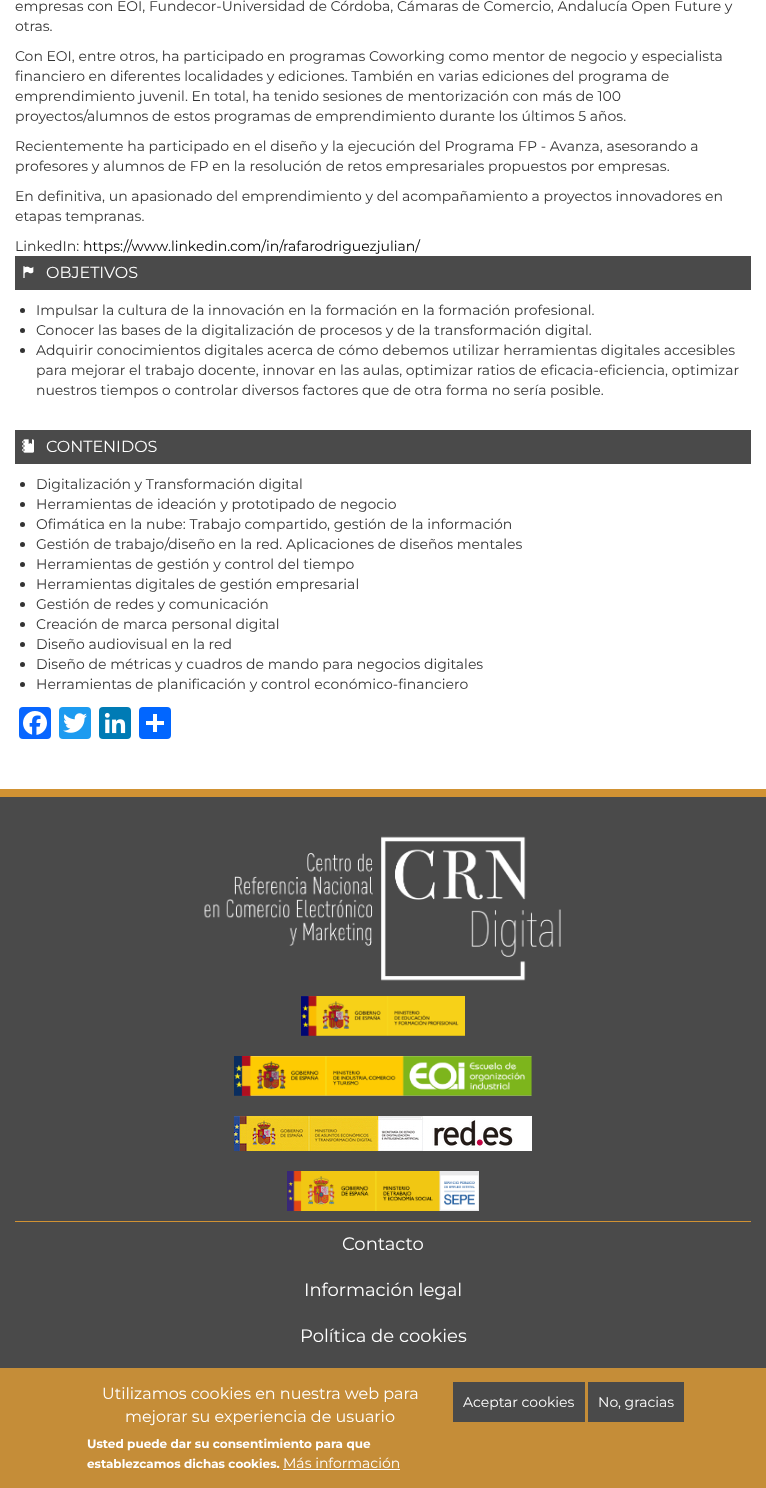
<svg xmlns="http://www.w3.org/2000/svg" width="766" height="1488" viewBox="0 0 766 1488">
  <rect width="100%" height="100%" fill="#ffffff"/>
  <text x="15" y="11" font-family="Montserrat" font-size="14" fill="#333333">empresas con EOI, Fundecor-Universidad de Córdoba, Cámaras de Comercio, Andalucía Open Future y</text>
  <text x="15" y="31" font-family="Montserrat" font-size="14" fill="#333333">otras.</text>
  <text x="15" y="61" font-family="Montserrat" font-size="14" fill="#333333">Con EOI, entre otros, ha participado en programas Coworking como mentor de negocio y especialista</text>
  <text x="15" y="81" font-family="Montserrat" font-size="14" fill="#333333">financiero en diferentes localidades y ediciones. También en varias ediciones del programa de</text>
  <text x="15" y="101" font-family="Montserrat" font-size="14" fill="#333333">emprendimiento juvenil. En total, ha tenido sesiones de mentorización con más de 100</text>
  <text x="15" y="121" font-family="Montserrat" font-size="14" fill="#333333">proyectos/alumnos de estos programas de emprendimiento durante los últimos 5 años.</text>
  <text x="15" y="151" font-family="Montserrat" font-size="14" fill="#333333">Recientemente ha participado en el diseño y la ejecución del Programa FP - Avanza, asesorando a</text>
  <text x="15" y="171" font-family="Montserrat" font-size="14" fill="#333333">profesores y alumnos de FP en la resolución de retos empresariales propuestos por empresas.</text>
  <text x="15" y="201" font-family="Montserrat" font-size="14" fill="#333333">En definitiva, un apasionado del emprendimiento y del acompañamiento a proyectos innovadores en</text>
  <text x="15" y="221" font-family="Montserrat" font-size="14" fill="#333333">etapas tempranas.</text>
  <text x="15" y="251" font-family="Montserrat" font-size="14" fill="#333333">LinkedIn:</text>
  <text x="83" y="251" font-family="Montserrat" font-size="14" fill="#000000">https://www.linkedin.com/in/rafarodriguezjulian/</text>
  <rect x="15" y="256" width="736" height="34" fill="#4a4a4a"/>
  <image x="23" y="266" width="11" height="12" href="img1.png"/>
  <text x="46" y="278" font-family="Montserrat" font-size="16" fill="#ffffff">OBJETIVOS</text>
  <circle cx="22.5" cy="310.5" r="2.5" fill="#333333"/>
  <text x="36" y="315" font-family="Montserrat" font-size="14" fill="#333333">Impulsar la cultura de la innovación en la formación en la formación profesional.</text>
  <circle cx="22.5" cy="330.5" r="2.5" fill="#333333"/>
  <text x="36" y="335" font-family="Montserrat" font-size="14" fill="#333333">Conocer las bases de la digitalización de procesos y de la transformación digital.</text>
  <circle cx="22.5" cy="350.5" r="2.5" fill="#333333"/>
  <text x="36" y="355" font-family="Montserrat" font-size="14" fill="#333333">Adquirir conocimientos digitales acerca de cómo debemos utilizar herramientas digitales accesibles</text>
  <text x="36" y="375" font-family="Montserrat" font-size="14" fill="#333333">para mejorar el trabajo docente, innovar en las aulas, optimizar ratios de eficacia-eficiencia, optimizar</text>
  <text x="36" y="395" font-family="Montserrat" font-size="14" fill="#333333">nuestros tiempos o controlar diversos factores que de otra forma no sería posible.</text>
  <rect x="15" y="430" width="736" height="34" fill="#4a4a4a"/>
  <image x="22" y="439" width="12" height="14" href="img2.png"/>
  <text x="46" y="452" font-family="Montserrat" font-size="16" fill="#ffffff">CONTENIDOS</text>
  <circle cx="22.5" cy="484.5" r="2.5" fill="#333333"/>
  <text x="36" y="489" font-family="Montserrat" font-size="14" fill="#333333">Digitalización y Transformación digital</text>
  <circle cx="22.5" cy="504.5" r="2.5" fill="#333333"/>
  <text x="36" y="509" font-family="Montserrat" font-size="14" fill="#333333">Herramientas de ideación y prototipado de negocio</text>
  <circle cx="22.5" cy="524.5" r="2.5" fill="#333333"/>
  <text x="36" y="529" font-family="Montserrat" font-size="14" fill="#333333">Ofimática en la nube: Trabajo compartido, gestión de la información</text>
  <circle cx="22.5" cy="544.5" r="2.5" fill="#333333"/>
  <text x="36" y="549" font-family="Montserrat" font-size="14" fill="#333333">Gestión de trabajo/diseño en la red. Aplicaciones de diseños mentales</text>
  <circle cx="22.5" cy="564.5" r="2.5" fill="#333333"/>
  <text x="36" y="569" font-family="Montserrat" font-size="14" fill="#333333">Herramientas de gestión y control del tiempo</text>
  <circle cx="22.5" cy="584.5" r="2.5" fill="#333333"/>
  <text x="36" y="589" font-family="Montserrat" font-size="14" fill="#333333">Herramientas digitales de gestión empresarial</text>
  <circle cx="22.5" cy="604.5" r="2.5" fill="#333333"/>
  <text x="36" y="609" font-family="Montserrat" font-size="14" fill="#333333">Gestión de redes y comunicación</text>
  <circle cx="22.5" cy="624.5" r="2.5" fill="#333333"/>
  <text x="36" y="629" font-family="Montserrat" font-size="14" fill="#333333">Creación de marca personal digital</text>
  <circle cx="22.5" cy="644.5" r="2.5" fill="#333333"/>
  <text x="36" y="649" font-family="Montserrat" font-size="14" fill="#333333">Diseño audiovisual en la red</text>
  <circle cx="22.5" cy="664.5" r="2.5" fill="#333333"/>
  <text x="36" y="669" font-family="Montserrat" font-size="14" fill="#333333">Diseño de métricas y cuadros de mando para negocios digitales</text>
  <circle cx="22.5" cy="684.5" r="2.5" fill="#333333"/>
  <text x="36" y="689" font-family="Montserrat" font-size="14" fill="#333333">Herramientas de planificación y control económico-financiero</text>
  <rect x="19" y="707" width="32" height="32" rx="4" fill="#0866ff"/>
  <image x="23" y="711" width="24" height="24" href="img3.png"/>
  <rect x="59" y="707" width="32" height="32" rx="4" fill="#1d9bf0"/>
  <image x="63" y="713" width="24" height="20" href="img4.png"/>
  <rect x="99" y="707" width="32" height="32" rx="4" fill="#007bb5"/>
  <image x="104" y="712" width="22" height="22" href="img5.png"/>
  <rect x="139" y="707" width="32" height="32" rx="4" fill="#0166ff"/>
  <rect x="153" y="714" width="4" height="18" fill="#ffffff"/>
  <rect x="146" y="721" width="18" height="4" fill="#ffffff"/>
  <rect x="0" y="797" width="766" height="571" fill="#4a4a4a"/>
  <rect x="0" y="789" width="766" height="8" fill="#d19233"/>
  <image x="204" y="836" width="357" height="145" href="img6.png"/>
  <image x="301" y="996" width="164" height="40" href="img7.png"/>
  <image x="234" y="1056" width="298" height="40" href="img8.png"/>
  <image x="234" y="1116" width="298" height="35" href="img9.png"/>
  <image x="287" y="1171" width="192" height="40" href="img10.png"/>
  <rect x="15" y="1221" width="736" height="1" fill="#d19233"/>
  <text x="342" y="1250" font-family="Montserrat" font-size="18" fill="#ffffff">Contacto</text>
  <text x="304" y="1296" font-family="Montserrat" font-size="18" fill="#ffffff">Información legal</text>
  <text x="300" y="1342" font-family="Montserrat" font-size="18" fill="#ffffff">Política de cookies</text>
  <rect x="0" y="1368" width="766" height="120" fill="#c58d38"/>
  <text x="102" y="1399" font-family="Montserrat" font-size="16" fill="#ffffff">Utilizamos cookies en nuestra web para</text>
  <text x="125" y="1422" font-family="Montserrat" font-size="16" fill="#ffffff">mejorar su experiencia de usuario</text>
  <text x="87" y="1448" font-family="Montserrat" font-size="12" font-weight="bold" fill="#ffffff">Usted puede dar su consentimiento para que</text>
  <text x="87" y="1468" font-family="Montserrat" font-size="12" font-weight="bold" fill="#ffffff">establezcamos dichas cookies.</text>
  <text x="283" y="1468" font-family="Montserrat" font-size="14" fill="#ffffff">Más información</text>
  <rect x="283" y="1469" width="117" height="1" fill="#ffffff"/>
  <rect x="453" y="1382" width="132" height="40" fill="#4a4a4a"/>
  <text x="463" y="1407" font-family="Montserrat" font-size="14" fill="#ffffff">Aceptar cookies</text>
  <rect x="588" y="1382" width="96" height="40" fill="#4a4a4a"/>
  <text x="598" y="1407" font-family="Montserrat" font-size="14" fill="#ffffff">No, gracias</text>
</svg>
